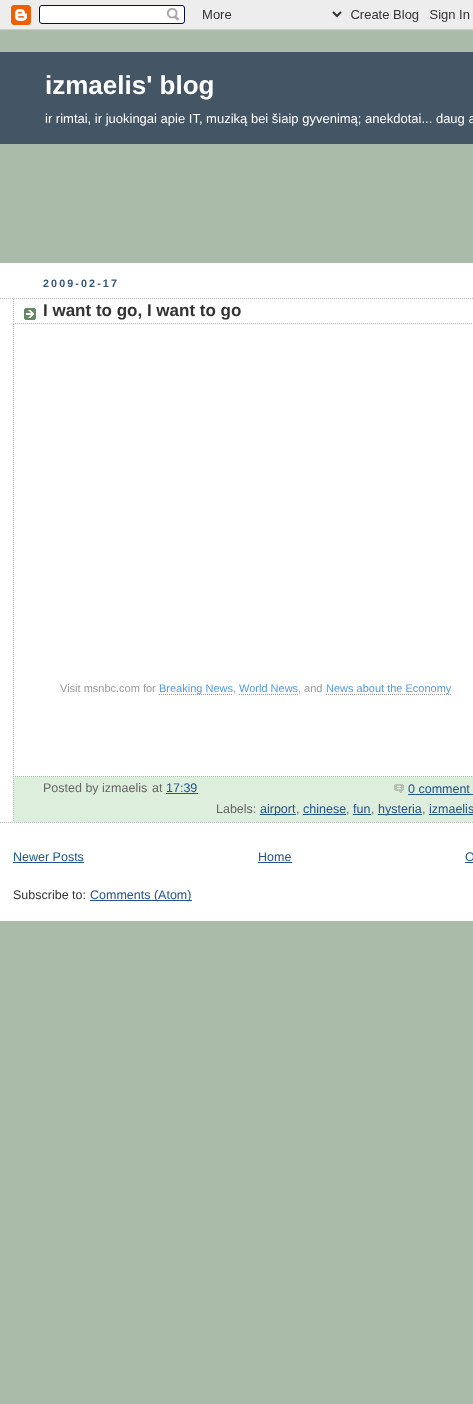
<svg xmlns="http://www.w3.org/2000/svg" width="473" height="1404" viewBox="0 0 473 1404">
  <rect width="100%" height="100%" fill="#aabbaa"/>
  <image x="0" y="0" width="473" height="30" href="img1.png"/>
  <rect x="0" y="52" width="473" height="92" fill="#445566"/>
  <text x="45" y="94" font-family="Liberation Sans" font-size="26" font-weight="bold" fill="#ffffff">izmaelis' blog</text>
  <text x="45" y="123" font-family="Liberation Sans" font-size="13" fill="#ffffff">ir rimtai, ir juokingai apie IT, muziką bei šiaip gyvenimą; anekdotai... daug a</text>
  <rect x="0" y="263" width="473" height="658" fill="#ffffff"/>
  <text x="43" y="287" font-family="Liberation Sans" font-size="10.75" font-weight="bold" letter-spacing="2.1" fill="#335577">2009-02-17</text>
  <path d="M0 298.5H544" fill="none" stroke="#bbbbbb" stroke-dasharray="1 1"/>
  <path d="M0 822.5H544" fill="none" stroke="#bbbbbb" stroke-dasharray="1 1"/>
  <image x="24" y="308" width="12" height="12" href="img2.png"/>
  <path d="M13 323.5H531" fill="none" stroke="#bbbbbb" stroke-dasharray="1 1"/>
  <path d="M13.5 299V324" fill="none" stroke="#bbbbbb" stroke-dasharray="1 1"/>
  <text x="43" y="316" font-family="Liberation Sans" font-size="17" font-weight="bold" fill="#333333">I want to go, I want to go</text>
  <path d="M13.5 324V776" fill="none" stroke="#bbbbbb" stroke-dasharray="1 1"/>
  <text x="60" y="692" font-family="Liberation Sans" font-size="11" fill="#999999">Visit msnbc.com for</text>
  <path d="M159 694.5H233" fill="none" stroke="#999999" stroke-dasharray="1 1"/>
  <text x="159" y="692" font-family="Liberation Sans" font-size="11" fill="#5799db">Breaking News</text>
  <text x="233" y="692" font-family="Liberation Sans" font-size="11" fill="#999999">,</text>
  <text x="239" y="692" font-family="Liberation Sans" font-size="11" fill="#5799db">World News</text>
  <path d="M239 694.5H298" fill="none" stroke="#999999" stroke-dasharray="1 1"/>
  <text x="298" y="692" font-family="Liberation Sans" font-size="11" fill="#999999">, and</text>
  <path d="M326 694.5H451" fill="none" stroke="#999999" stroke-dasharray="1 1"/>
  <text x="326" y="692" font-family="Liberation Sans" font-size="11" fill="#5799db">News about the Economy</text>
  <rect x="13" y="776" width="460" height="46" fill="#ddeedd"/>
  <path d="M13 776.5H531" fill="none" stroke="#bbbbbb" stroke-dasharray="1 1"/>
  <path d="M13.5 776V822" fill="none" stroke="#bbbbbb" stroke-dasharray="1 1"/>
  <text x="43" y="792" font-family="Liberation Sans" font-size="12.5" fill="#666666">Posted by izmaelis</text>
  <text x="152" y="792" font-family="Liberation Sans" font-size="12.5" fill="#666666">at</text>
  <text x="166" y="792" font-family="Liberation Sans" font-size="12.5" fill="#225588">17:39</text>
  <rect x="166" y="793" width="32" height="1" fill="#225588"/>
  <image x="394" y="784" width="10" height="9" href="img3.png"/>
  <text x="408" y="793" font-family="Liberation Sans" font-size="12.5" fill="#225588">0 comment</text>
  <rect x="408" y="794" width="65" height="1" fill="#225588"/>
  <text x="216" y="813" font-family="Liberation Sans" font-size="12.5" fill="#666666">Labels:</text>
  <rect x="260" y="814" width="36" height="1" fill="#225588"/>
  <text x="260" y="813" font-family="Liberation Sans" font-size="12.5" fill="#225588">airport</text>
  <text x="296" y="813" font-family="Liberation Sans" font-size="12.5" fill="#666666">,</text>
  <text x="303" y="813" font-family="Liberation Sans" font-size="12.5" fill="#225588">chinese</text>
  <text x="346" y="813" font-family="Liberation Sans" font-size="12.5" fill="#666666">,</text>
  <rect x="303" y="814" width="43" height="1" fill="#225588"/>
  <text x="353" y="813" font-family="Liberation Sans" font-size="12.5" fill="#225588">fun</text>
  <text x="371" y="813" font-family="Liberation Sans" font-size="12.5" fill="#666666">,</text>
  <rect x="353" y="814" width="18" height="1" fill="#225588"/>
  <rect x="378" y="814" width="44" height="1" fill="#225588"/>
  <text x="378" y="813" font-family="Liberation Sans" font-size="12.5" fill="#225588">hysteria</text>
  <text x="422" y="813" font-family="Liberation Sans" font-size="12.5" fill="#666666">,</text>
  <rect x="429" y="814" width="44" height="1" fill="#225588"/>
  <text x="429" y="813" font-family="Liberation Sans" font-size="12.5" fill="#225588">izmaelis</text>
  <text x="13" y="861" font-family="Liberation Sans" font-size="12.5" fill="#225588">Newer Posts</text>
  <rect x="13" y="862" width="71" height="1" fill="#225588"/>
  <text x="258" y="861" font-family="Liberation Sans" font-size="12.5" fill="#225588">Home</text>
  <rect x="258" y="862" width="34" height="1" fill="#225588"/>
  <text x="465" y="861" font-family="Liberation Sans" font-size="12.5" fill="#225588">O</text>
  <rect x="465" y="862" width="8" height="1" fill="#225588"/>
  <text x="13" y="899" font-family="Liberation Sans" font-size="12.5" fill="#333333">Subscribe to:</text>
  <rect x="90" y="900" width="102" height="1" fill="#225588"/>
  <text x="90" y="899" font-family="Liberation Sans" font-size="12.5" fill="#225588">Comments (Atom)</text>
</svg>
